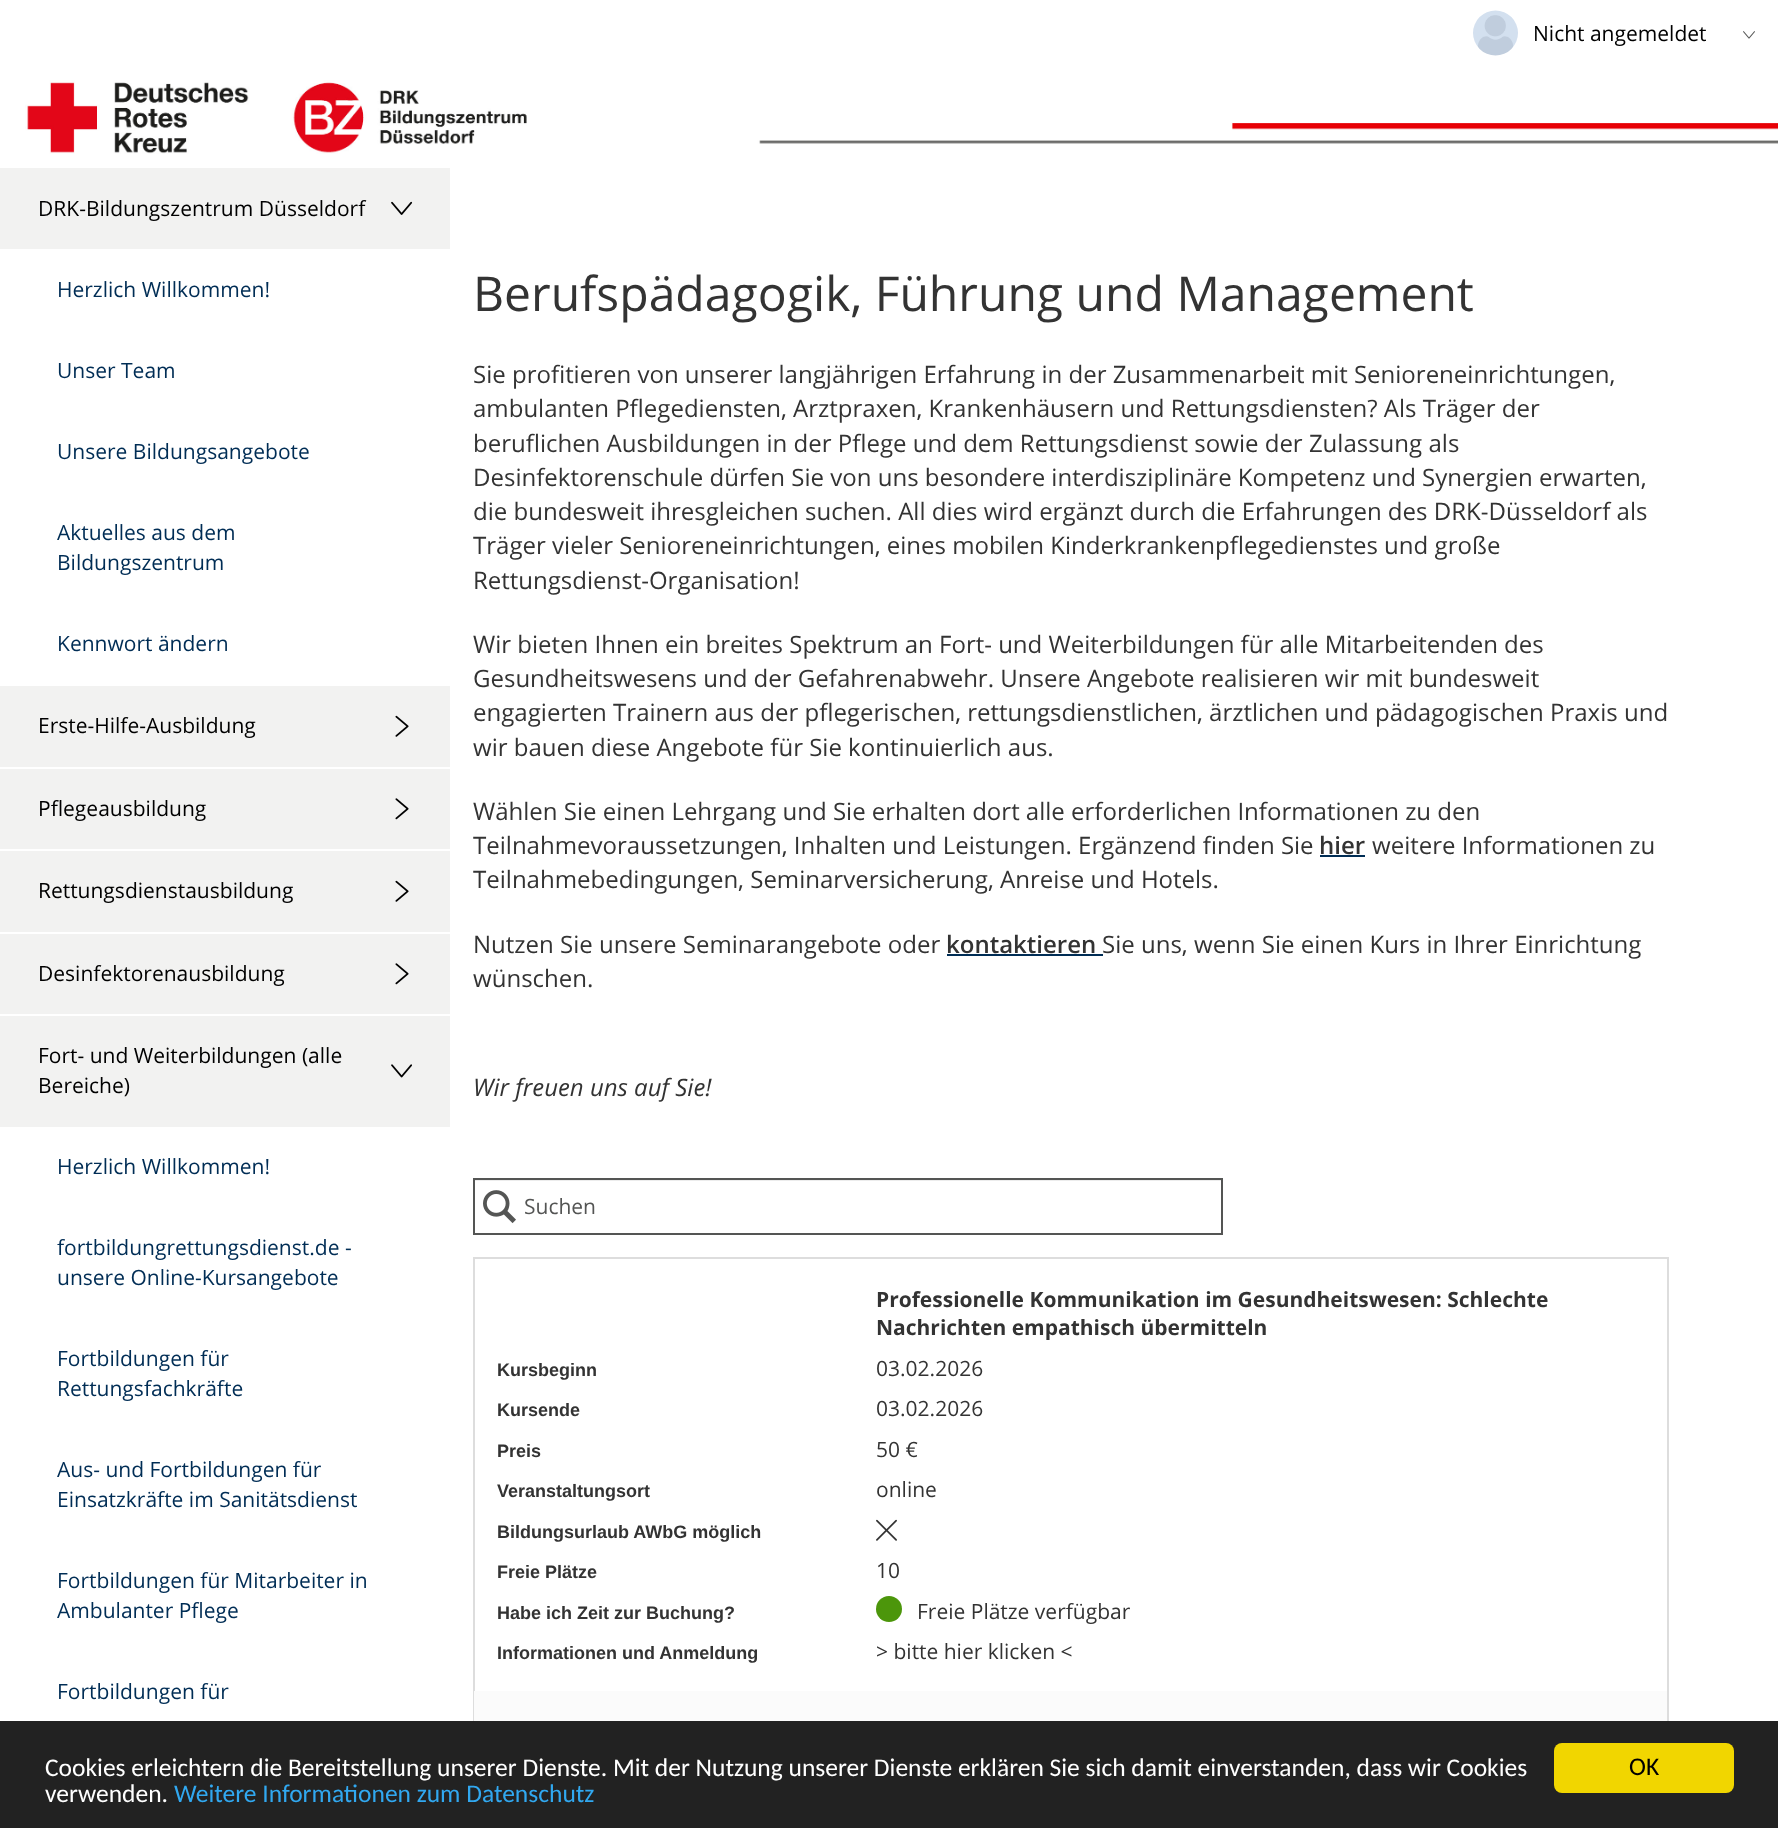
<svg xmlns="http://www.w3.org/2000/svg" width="1778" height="1828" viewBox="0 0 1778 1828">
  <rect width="100%" height="100%" fill="#ffffff"/>
  <image x="1473" y="10" width="45" height="46" href="img1.png"/>
  <text x="1533" y="41" font-family="Open Sans" font-size="21" fill="#000000">Nicht angemeldet</text>
  <image x="1743" y="31" width="12" height="8" href="img2.png"/>
  <image x="25" y="80" width="1753" height="74" href="img3.png"/>
  <rect x="0" y="168" width="450" height="959" fill="#f2f2f1"/>
  <rect x="0" y="249" width="450" height="437" fill="#ffffff"/>
  <text x="38" y="216" font-family="Open Sans" font-size="21" fill="#000000">DRK-Bildungszentrum Düsseldorf</text>
  <image x="391" y="201" width="22" height="14" href="img4.png"/>
  <text x="57" y="297" font-family="Open Sans" font-size="21" fill="#002d55">Herzlich Willkommen!</text>
  <text x="57" y="378" font-family="Open Sans" font-size="21" fill="#002d55">Unser Team</text>
  <text x="57" y="459" font-family="Open Sans" font-size="21" fill="#002d55">Unsere Bildungsangebote</text>
  <text x="57" y="540" font-family="Open Sans" font-size="21" fill="#002d55">Aktuelles aus dem</text>
  <text x="57" y="570" font-family="Open Sans" font-size="21" fill="#002d55">Bildungszentrum</text>
  <text x="57" y="651" font-family="Open Sans" font-size="21" fill="#002d55">Kennwort ändern</text>
  <rect x="0" y="767" width="450" height="2" fill="#ffffff"/>
  <text x="38" y="733" font-family="Open Sans" font-size="21" fill="#000000">Erste-Hilfe-Ausbildung</text>
  <image x="395" y="715" width="14" height="22" href="img5.png"/>
  <rect x="0" y="849" width="450" height="2" fill="#ffffff"/>
  <text x="38" y="816" font-family="Open Sans" font-size="21" fill="#000000">Pflegeausbildung</text>
  <image x="395" y="798" width="14" height="22" href="img6.png"/>
  <rect x="0" y="932" width="450" height="2" fill="#ffffff"/>
  <text x="38" y="898" font-family="Open Sans" font-size="21" fill="#000000">Rettungsdienstausbildung</text>
  <image x="395" y="880" width="14" height="22" href="img5.png"/>
  <rect x="0" y="1014" width="450" height="2" fill="#ffffff"/>
  <text x="38" y="981" font-family="Open Sans" font-size="21" fill="#000000">Desinfektorenausbildung</text>
  <image x="395" y="963" width="14" height="22" href="img6.png"/>
  <text x="38" y="1063" font-family="Open Sans" font-size="21" fill="#000000">Fort- und Weiterbildungen (alle</text>
  <text x="38" y="1093" font-family="Open Sans" font-size="21" fill="#000000">Bereiche)</text>
  <image x="391" y="1064" width="21" height="14" href="img7.png"/>
  <text x="57" y="1174" font-family="Open Sans" font-size="21" fill="#002d55">Herzlich Willkommen!</text>
  <text x="57" y="1255" font-family="Open Sans" font-size="21" fill="#002d55">fortbildungrettungsdienst.de -</text>
  <text x="57" y="1285" font-family="Open Sans" font-size="21" fill="#002d55">unsere Online-Kursangebote</text>
  <text x="57" y="1366" font-family="Open Sans" font-size="21" fill="#002d55">Fortbildungen für</text>
  <text x="57" y="1396" font-family="Open Sans" font-size="21" fill="#002d55">Rettungsfachkräfte</text>
  <text x="57" y="1477" font-family="Open Sans" font-size="21" fill="#002d55">Aus- und Fortbildungen für</text>
  <text x="57" y="1507" font-family="Open Sans" font-size="21" fill="#002d55">Einsatzkräfte im Sanitätsdienst</text>
  <text x="57" y="1588" font-family="Open Sans" font-size="21" fill="#002d55">Fortbildungen für Mitarbeiter in</text>
  <text x="57" y="1618" font-family="Open Sans" font-size="21" fill="#002d55">Ambulanter Pflege</text>
  <text x="57" y="1699" font-family="Open Sans" font-size="21" fill="#002d55">Fortbildungen für</text>
  <text x="473" y="311" font-family="Open Sans" font-size="48" fill="#333333">Berufspädagogik, Führung und Management</text>
  <text x="473" y="383" font-family="Open Sans" font-size="24" fill="#333333">Sie profitieren von unserer langjährigen Erfahrung in der Zusammenarbeit mit Senioreneinrichtungen,</text>
  <text x="473" y="417" font-family="Open Sans" font-size="24" fill="#333333">ambulanten Pflegediensten, Arztpraxen, Krankenhäusern und Rettungsdiensten? Als Träger der</text>
  <text x="473" y="452" font-family="Open Sans" font-size="24" fill="#333333">beruflichen Ausbildungen in der Pflege und dem Rettungsdienst sowie der Zulassung als</text>
  <text x="473" y="486" font-family="Open Sans" font-size="24" fill="#333333">Desinfektorenschule dürfen Sie von uns besondere interdisziplinäre Kompetenz und Synergien erwarten,</text>
  <text x="473" y="520" font-family="Open Sans" font-size="24" fill="#333333">die bundesweit ihresgleichen suchen. All dies wird ergänzt durch die Erfahrungen des DRK-Düsseldorf als</text>
  <text x="473" y="554" font-family="Open Sans" font-size="24" fill="#333333">Träger vieler Senioreneinrichtungen, eines mobilen Kinderkrankenpflegedienstes und große</text>
  <text x="473" y="589" font-family="Open Sans" font-size="24" fill="#333333">Rettungsdienst-Organisation!</text>
  <text x="473" y="653" font-family="Open Sans" font-size="24" fill="#333333">Wir bieten Ihnen ein breites Spektrum an Fort- und Weiterbildungen für alle Mitarbeitenden des</text>
  <text x="473" y="687" font-family="Open Sans" font-size="24" fill="#333333">Gesundheitswesens und der Gefahrenabwehr. Unsere Angebote realisieren wir mit bundesweit</text>
  <text x="473" y="721" font-family="Open Sans" font-size="24" fill="#333333">engagierten Trainern aus der pflegerischen, rettungsdienstlichen, ärztlichen und pädagogischen Praxis und</text>
  <text x="473" y="756" font-family="Open Sans" font-size="24" fill="#333333">wir bauen diese Angebote für Sie kontinuierlich aus.</text>
  <text x="473" y="820" font-family="Open Sans" font-size="24" fill="#333333">Wählen Sie einen Lehrgang und Sie erhalten dort alle erforderlichen Informationen zu den</text>
  <text x="473" y="854" font-family="Open Sans" font-size="24" fill="#333333">Teilnahmevoraussetzungen, Inhalten und Leistungen. Ergänzend finden Sie</text>
  <text x="1319" y="854" font-family="Open Sans" font-size="24" font-weight="600" fill="#333333">hier</text>
  <rect x="1320" y="855" width="45" height="2" fill="#002d55"/>
  <text x="1372" y="854" font-family="Open Sans" font-size="24" fill="#333333">weitere Informationen zu</text>
  <text x="473" y="888" font-family="Open Sans" font-size="24" fill="#333333">Teilnahmebedingungen, Seminarversicherung, Anreise und Hotels.</text>
  <text x="473" y="953" font-family="Open Sans" font-size="24" fill="#333333">Nutzen Sie unsere Seminarangebote oder</text>
  <text x="946" y="953" font-family="Open Sans" font-size="24" font-weight="600" fill="#333333">kontaktieren</text>
  <text x="1102" y="953" font-family="Open Sans" font-size="24" fill="#333333">Sie uns, wenn Sie einen Kurs in Ihrer Einrichtung</text>
  <rect x="947" y="954" width="156" height="2" fill="#002d55"/>
  <text x="473" y="987" font-family="Open Sans" font-size="24" fill="#333333">wünschen.</text>
  <text x="473" y="1096" font-family="Open Sans" font-size="24" font-style="italic" fill="#333333">Wir freuen uns auf Sie!</text>
  <rect x="474" y="1180" width="747" height="1" fill="#ececec"/>
  <rect x="474" y="1179" width="748" height="55" fill="none" stroke="#545554" stroke-width="2"/>
  <image x="483" y="1190" width="33" height="34" href="img8.png"/>
  <text x="524" y="1214" font-family="Open Sans" font-size="21" fill="#545554">Suchen</text>
  <rect x="473" y="1257" width="1195" height="2" fill="#dddddd"/>
  <rect x="1667" y="1257" width="2" height="464" fill="#dddddd"/>
  <rect x="473" y="1257" width="2" height="464" fill="#dddddd"/>
  <text x="876" y="1307" font-family="Open Sans" font-size="21" font-weight="bold" fill="#333333">Professionelle Kommunikation im Gesundheitswesen: Schlechte</text>
  <text x="876" y="1335" font-family="Open Sans" font-size="21" font-weight="bold" fill="#333333">Nachrichten empathisch übermitteln</text>
  <text x="497" y="1376" font-family="Liberation Sans" font-size="18" font-weight="bold" fill="#333333">Kursbeginn</text>
  <text x="876" y="1376" font-family="Open Sans" font-size="21" fill="#333333">03.02.2026</text>
  <text x="497" y="1416" font-family="Liberation Sans" font-size="18" font-weight="bold" fill="#333333">Kursende</text>
  <text x="876" y="1416" font-family="Open Sans" font-size="21" fill="#333333">03.02.2026</text>
  <text x="497" y="1457" font-family="Liberation Sans" font-size="18" font-weight="bold" fill="#333333">Preis</text>
  <text x="876" y="1457" font-family="Open Sans" font-size="21" fill="#333333">50 €</text>
  <text x="497" y="1497" font-family="Liberation Sans" font-size="18" font-weight="bold" fill="#333333">Veranstaltungsort</text>
  <text x="876" y="1497" font-family="Open Sans" font-size="21" fill="#333333">online</text>
  <text x="497" y="1538" font-family="Liberation Sans" font-size="18" font-weight="bold" fill="#333333">Bildungsurlaub AWbG möglich</text>
  <image x="876" y="1519" width="21" height="22" href="img9.png"/>
  <text x="497" y="1578" font-family="Liberation Sans" font-size="18" font-weight="bold" fill="#333333">Freie Plätze</text>
  <text x="876" y="1578" font-family="Open Sans" font-size="21" fill="#333333">10</text>
  <text x="497" y="1619" font-family="Liberation Sans" font-size="18" font-weight="bold" fill="#333333">Habe ich Zeit zur Buchung?</text>
  <circle cx="889" cy="1609" r="13" fill="#4c960b"/>
  <text x="917" y="1619" font-family="Open Sans" font-size="21" fill="#333333">Freie Plätze verfügbar</text>
  <text x="497" y="1659" font-family="Liberation Sans" font-size="18" font-weight="bold" fill="#333333">Informationen und Anmeldung</text>
  <text x="876" y="1659" font-family="Open Sans" font-size="21" fill="#333333">&gt; bitte hier klicken &lt;</text>
  <rect x="474" y="1691" width="1193" height="30" fill="#fbfbfb"/>
  <rect x="0" y="1721" width="1778" height="107" fill="#222222"/>
  <text x="45" y="1776" font-family="Carlito" font-size="25.5" fill="#ffffff">Cookies erleichtern die Bereitstellung unserer Dienste. Mit der Nutzung unserer Dienste erklären Sie sich damit einverstanden, dass wir Cookies</text>
  <text x="45" y="1802" font-family="Carlito" font-size="25.5" fill="#ffffff">verwenden.</text>
  <text x="174" y="1802" font-family="Carlito" font-size="25.5" fill="#31a8f0">Weitere Informationen zum Datenschutz</text>
  <rect x="1554" y="1743" width="180" height="50" rx="8" fill="#f1d600"/>
  <text x="1629" y="1775" font-family="Carlito" font-size="25.5" fill="#000000">OK</text>
</svg>
